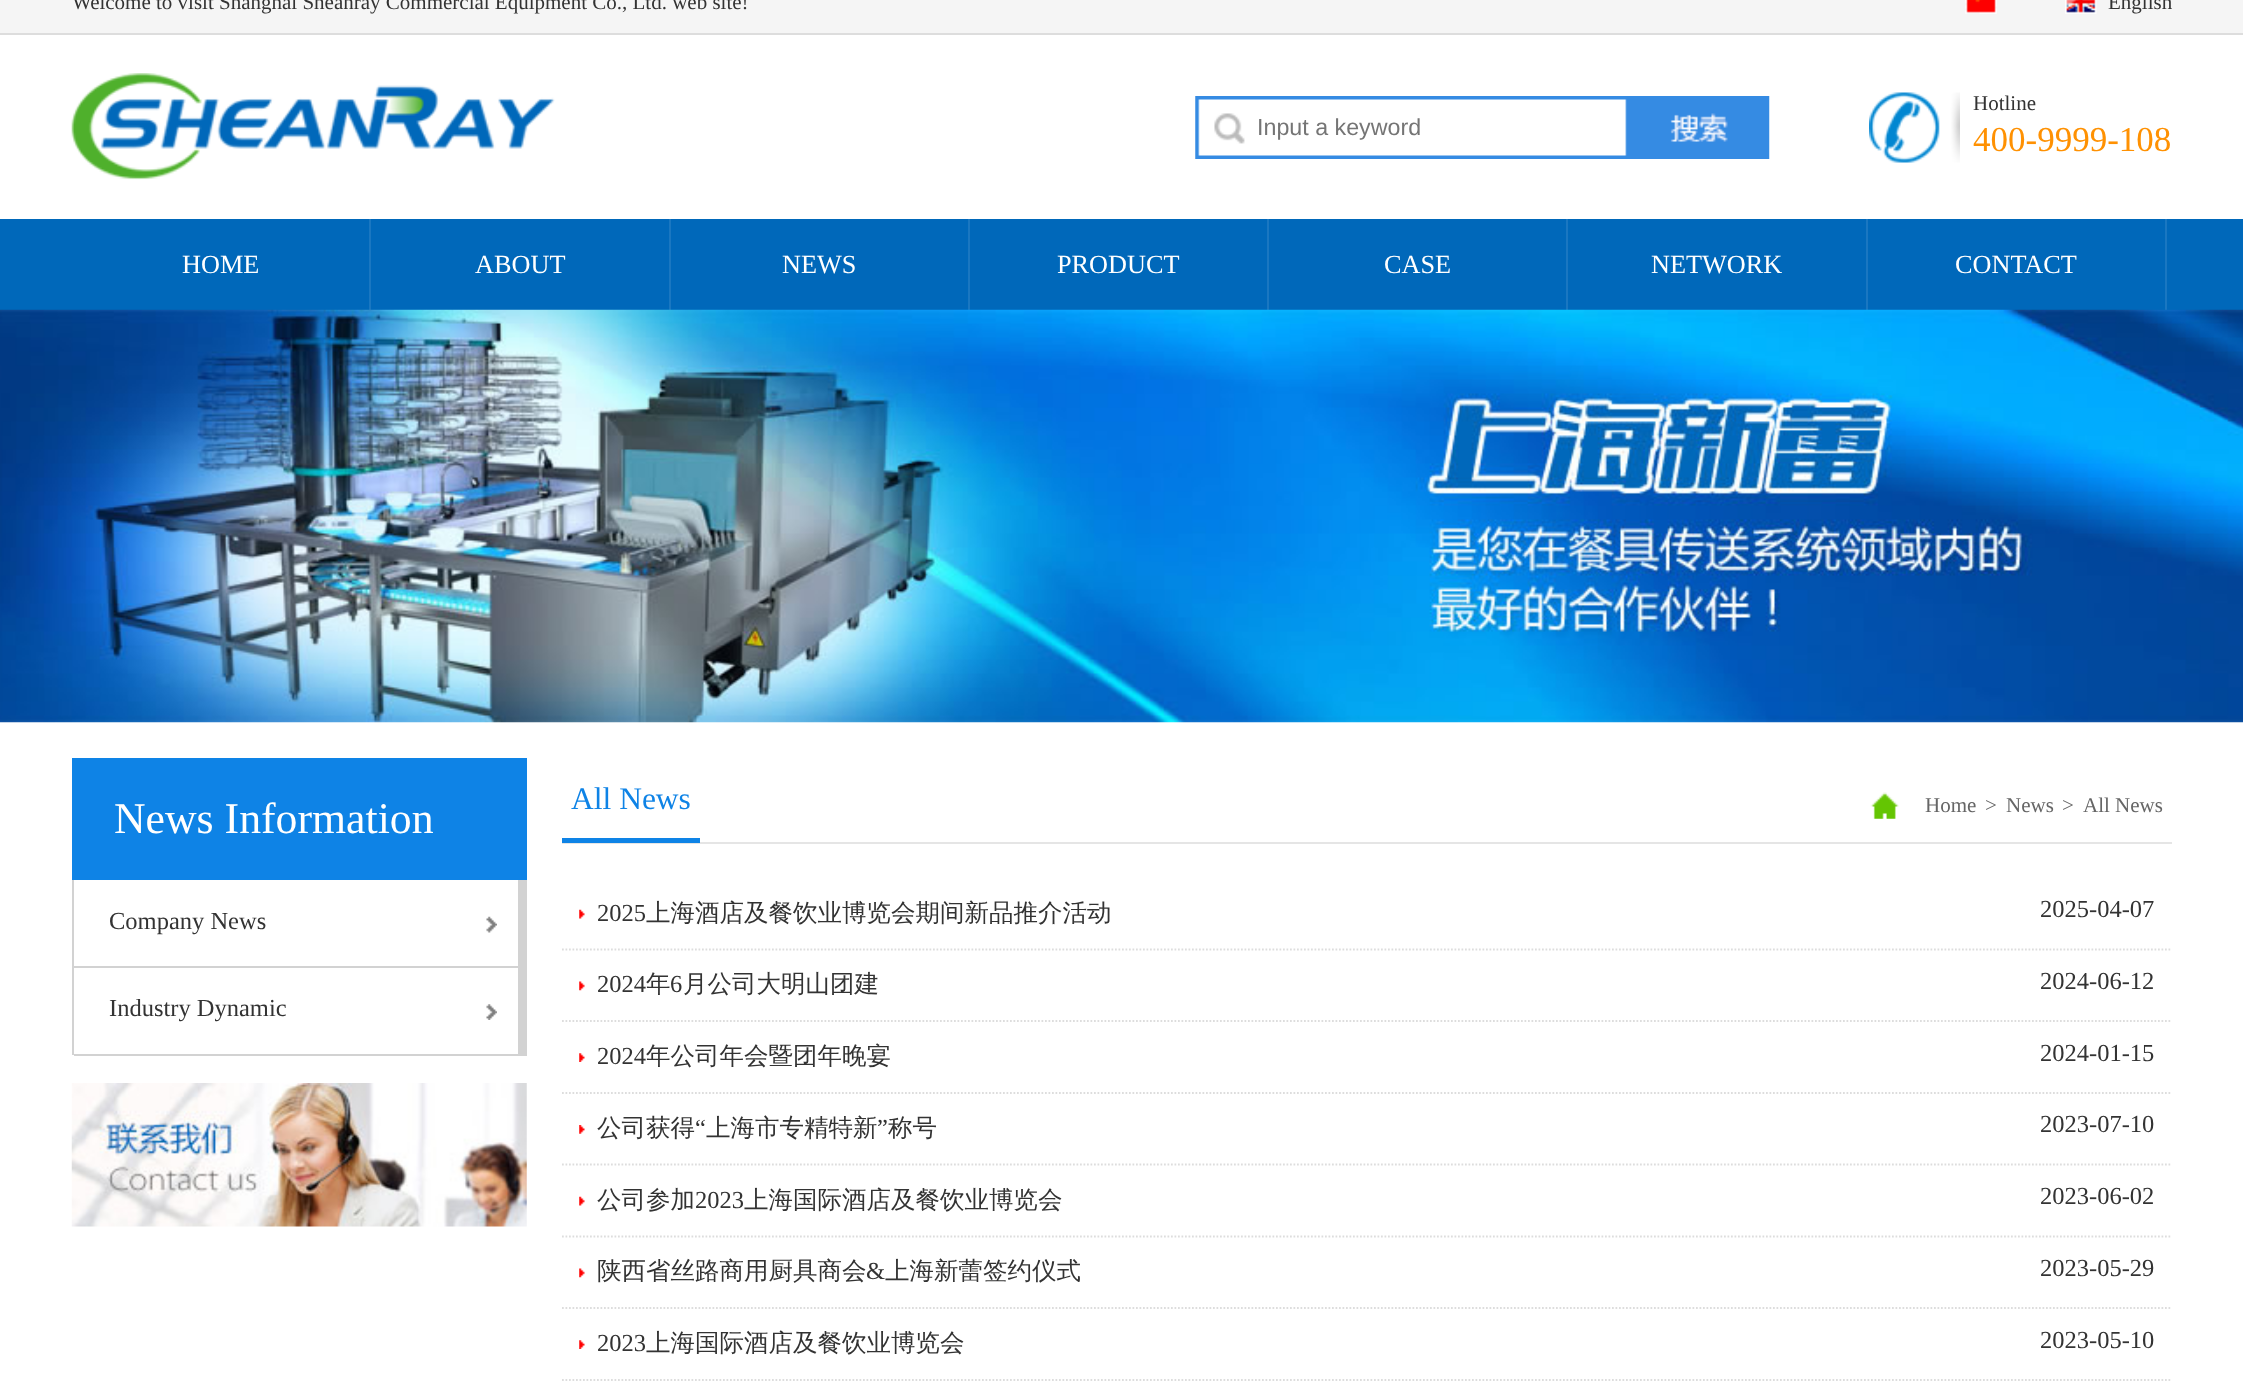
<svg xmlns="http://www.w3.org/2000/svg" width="2243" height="1392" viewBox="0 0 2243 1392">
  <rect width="100%" height="100%" fill="#ffffff"/>
  <rect x="0" y="0" width="2243" height="33" fill="#f5f5f5"/>
  <rect x="0" y="33" width="2243" height="2" fill="#dddddd"/>
  <text x="72" y="9" font-family="Liberation Serif" font-size="21" fill="#333333">Welcome to visit Shanghai Sheanray Commercial Equipment Co., Ltd. web site!</text>
  <image x="1965" y="0" width="32" height="14" href="img1.png"/>
  <image x="2065" y="0" width="32" height="14" href="img2.png"/>
  <text x="2108" y="9" font-family="Liberation Serif" font-size="21" fill="#333333">English</text>
  <image x="71" y="73" width="484" height="107" href="img3.png"/>
  <image x="1195" y="96" width="575" height="63" href="img4.png"/>
  <text x="1257" y="135" font-family="Liberation Sans" font-size="23.25" fill="#757575">Input a keyword</text>
  <image x="1869" y="92" width="91" height="71" href="img5.png"/>
  <text x="1973" y="110" font-family="Liberation Serif" font-size="21" fill="#333333">Hotline</text>
  <text x="1973" y="151" font-family="Liberation Serif" font-size="35" fill="#ff9102">400-9999-108</text>
  <rect x="0" y="219" width="2243" height="91" fill="#0068ba"/>
  <rect x="369" y="219" width="2" height="91" fill="#1a77c1"/>
  <text x="182" y="273" font-family="Liberation Serif" font-size="26.25" fill="#ffffff">HOME</text>
  <rect x="669" y="219" width="2" height="91" fill="#1a77c1"/>
  <text x="475" y="273" font-family="Liberation Serif" font-size="26.25" fill="#ffffff">ABOUT</text>
  <rect x="968" y="219" width="2" height="91" fill="#1a77c1"/>
  <text x="782" y="273" font-family="Liberation Serif" font-size="26.25" fill="#ffffff">NEWS</text>
  <rect x="1267" y="219" width="2" height="91" fill="#1a77c1"/>
  <text x="1057" y="273" font-family="Liberation Serif" font-size="26.25" fill="#ffffff">PRODUCT</text>
  <rect x="1566" y="219" width="2" height="91" fill="#1a77c1"/>
  <text x="1384" y="273" font-family="Liberation Serif" font-size="26.25" fill="#ffffff">CASE</text>
  <rect x="1866" y="219" width="2" height="91" fill="#1a77c1"/>
  <text x="1651" y="273" font-family="Liberation Serif" font-size="26.25" fill="#ffffff">NETWORK</text>
  <rect x="2165" y="219" width="2" height="91" fill="#1a77c1"/>
  <text x="1955" y="273" font-family="Liberation Serif" font-size="26.25" fill="#ffffff">CONTACT</text>
  <image x="0" y="309" width="2243" height="414" href="img6.png"/>
  <rect x="72" y="758" width="455" height="122" fill="#0e83e6"/>
  <text x="114" y="833" font-family="Liberation Serif" font-size="43.75" fill="#ffffff">News Information</text>
  <rect x="72" y="880" width="2" height="175" fill="#d2d2d2"/>
  <rect x="74" y="966" width="453" height="2" fill="#d2d2d2"/>
  <image x="486" y="916" width="11" height="17" href="img7.png"/>
  <rect x="518" y="880" width="9" height="86" fill="#d2d2d2"/>
  <text x="109" y="929" font-family="Liberation Serif" font-size="24.5" fill="#333333">Company News</text>
  <rect x="74" y="1054" width="453" height="2" fill="#d2d2d2"/>
  <image x="486" y="1004" width="11" height="16" href="img8.png"/>
  <rect x="518" y="968" width="9" height="86" fill="#d2d2d2"/>
  <text x="109" y="1016" font-family="Liberation Serif" font-size="24.5" fill="#333333">Industry Dynamic</text>
  <image x="71" y="1083" width="456" height="144" href="img9.png"/>
  <rect x="562" y="842" width="1610" height="2" fill="#e5e5e5"/>
  <rect x="562" y="838" width="138" height="5" fill="#0e83e6"/>
  <text x="571" y="809" font-family="Liberation Serif" font-size="31.5" fill="#0e83e6">All News</text>
  <image x="1870" y="792" width="29" height="27" href="img10.png"/>
  <text x="1925" y="812" font-family="Liberation Serif" font-size="21" fill="#666666">Home</text>
  <text x="1985" y="812" font-family="Liberation Serif" font-size="21" fill="#666666">&gt;</text>
  <text x="2006" y="812" font-family="Liberation Serif" font-size="21" fill="#666666">News</text>
  <text x="2062" y="812" font-family="Liberation Serif" font-size="21" fill="#666666">&gt;</text>
  <text x="2083" y="812" font-family="Liberation Serif" font-size="21" fill="#666666">All News</text>
  <image x="579" y="909" width="6" height="10" href="img11.png"/>
  <path d="M562 949.5H2172" fill="none" stroke="#dddddd" stroke-width="1.8" stroke-dasharray="1.75 1.75"/>
  <text x="597" y="921" font-family="Liberation Serif" font-size="24.5" fill="#333333">2025</text>
  <text x="646" y="921" font-family="WenQuanYi Zen Hei" font-size="24.5" font-weight="500" fill="#333333">上海酒店及餐饮业博览会期间新品推介活动</text>
  <text x="2040" y="917" font-family="Liberation Serif" font-size="24.5" fill="#333333">2025-04-07</text>
  <image x="579" y="981" width="6" height="10" href="img12.png"/>
  <path d="M562 1021H2172" fill="none" stroke="#dddddd" stroke-width="1.8" stroke-dasharray="1.75 1.75"/>
  <text x="597" y="992" font-family="Liberation Serif" font-size="24.5" fill="#333333">2024</text>
  <text x="646" y="992" font-family="WenQuanYi Zen Hei" font-size="24.5" font-weight="500" fill="#333333">年</text>
  <text x="670" y="992" font-family="Liberation Serif" font-size="24.5" fill="#333333">6</text>
  <text x="683" y="992" font-family="WenQuanYi Zen Hei" font-size="24.5" font-weight="500" fill="#333333">月公司大明山团建</text>
  <text x="2040" y="989" font-family="Liberation Serif" font-size="24.5" fill="#333333">2024-06-12</text>
  <image x="579" y="1053" width="6" height="9" href="img13.png"/>
  <path d="M562 1093H2172" fill="none" stroke="#dddddd" stroke-width="1.8" stroke-dasharray="1.75 1.75"/>
  <text x="597" y="1064" font-family="Liberation Serif" font-size="24.5" fill="#333333">2024</text>
  <text x="646" y="1064" font-family="WenQuanYi Zen Hei" font-size="24.5" font-weight="500" fill="#333333">年公司年会暨团年晚宴</text>
  <text x="2040" y="1061" font-family="Liberation Serif" font-size="24.5" fill="#333333">2024-01-15</text>
  <image x="579" y="1125" width="6" height="9" href="img14.png"/>
  <path d="M562 1164.5H2172" fill="none" stroke="#dddddd" stroke-width="1.8" stroke-dasharray="1.75 1.75"/>
  <text x="597" y="1136" font-family="WenQuanYi Zen Hei" font-size="24.5" font-weight="500" fill="#333333">公司获得</text>
  <text x="695" y="1136" font-family="Liberation Serif" font-size="24.5" fill="#333333">“</text>
  <text x="706" y="1136" font-family="WenQuanYi Zen Hei" font-size="24.5" font-weight="500" fill="#333333">上海市专精特新</text>
  <text x="877" y="1136" font-family="Liberation Serif" font-size="24.5" fill="#333333">”</text>
  <text x="888" y="1136" font-family="WenQuanYi Zen Hei" font-size="24.5" font-weight="500" fill="#333333">称号</text>
  <text x="2040" y="1132" font-family="Liberation Serif" font-size="24.5" fill="#333333">2023-07-10</text>
  <image x="579" y="1196" width="6" height="10" href="img11.png"/>
  <path d="M562 1236.5H2172" fill="none" stroke="#dddddd" stroke-width="1.8" stroke-dasharray="1.75 1.75"/>
  <text x="597" y="1208" font-family="WenQuanYi Zen Hei" font-size="24.5" font-weight="500" fill="#333333">公司参加</text>
  <text x="695" y="1208" font-family="Liberation Serif" font-size="24.5" fill="#333333">2023</text>
  <text x="744" y="1208" font-family="WenQuanYi Zen Hei" font-size="24.5" font-weight="500" fill="#333333">上海国际酒店及餐饮业博览会</text>
  <text x="2040" y="1204" font-family="Liberation Serif" font-size="24.5" fill="#333333">2023-06-02</text>
  <image x="579" y="1268" width="6" height="10" href="img12.png"/>
  <path d="M562 1308H2172" fill="none" stroke="#dddddd" stroke-width="1.8" stroke-dasharray="1.75 1.75"/>
  <text x="597" y="1279" font-family="WenQuanYi Zen Hei" font-size="24.5" font-weight="500" fill="#333333">陕西省丝路商用厨具商会</text>
  <text x="866" y="1279" font-family="Liberation Serif" font-size="24.5" fill="#333333">&amp;</text>
  <text x="885" y="1279" font-family="WenQuanYi Zen Hei" font-size="24.5" font-weight="500" fill="#333333">上海新蕾签约仪式</text>
  <text x="2040" y="1276" font-family="Liberation Serif" font-size="24.5" fill="#333333">2023-05-29</text>
  <image x="579" y="1340" width="6" height="9" href="img13.png"/>
  <path d="M562 1380H2172" fill="none" stroke="#dddddd" stroke-width="1.8" stroke-dasharray="1.75 1.75"/>
  <text x="597" y="1351" font-family="Liberation Serif" font-size="24.5" fill="#333333">2023</text>
  <text x="646" y="1351" font-family="WenQuanYi Zen Hei" font-size="24.5" font-weight="500" fill="#333333">上海国际酒店及餐饮业博览会</text>
  <text x="2040" y="1348" font-family="Liberation Serif" font-size="24.5" fill="#333333">2023-05-10</text>
</svg>
